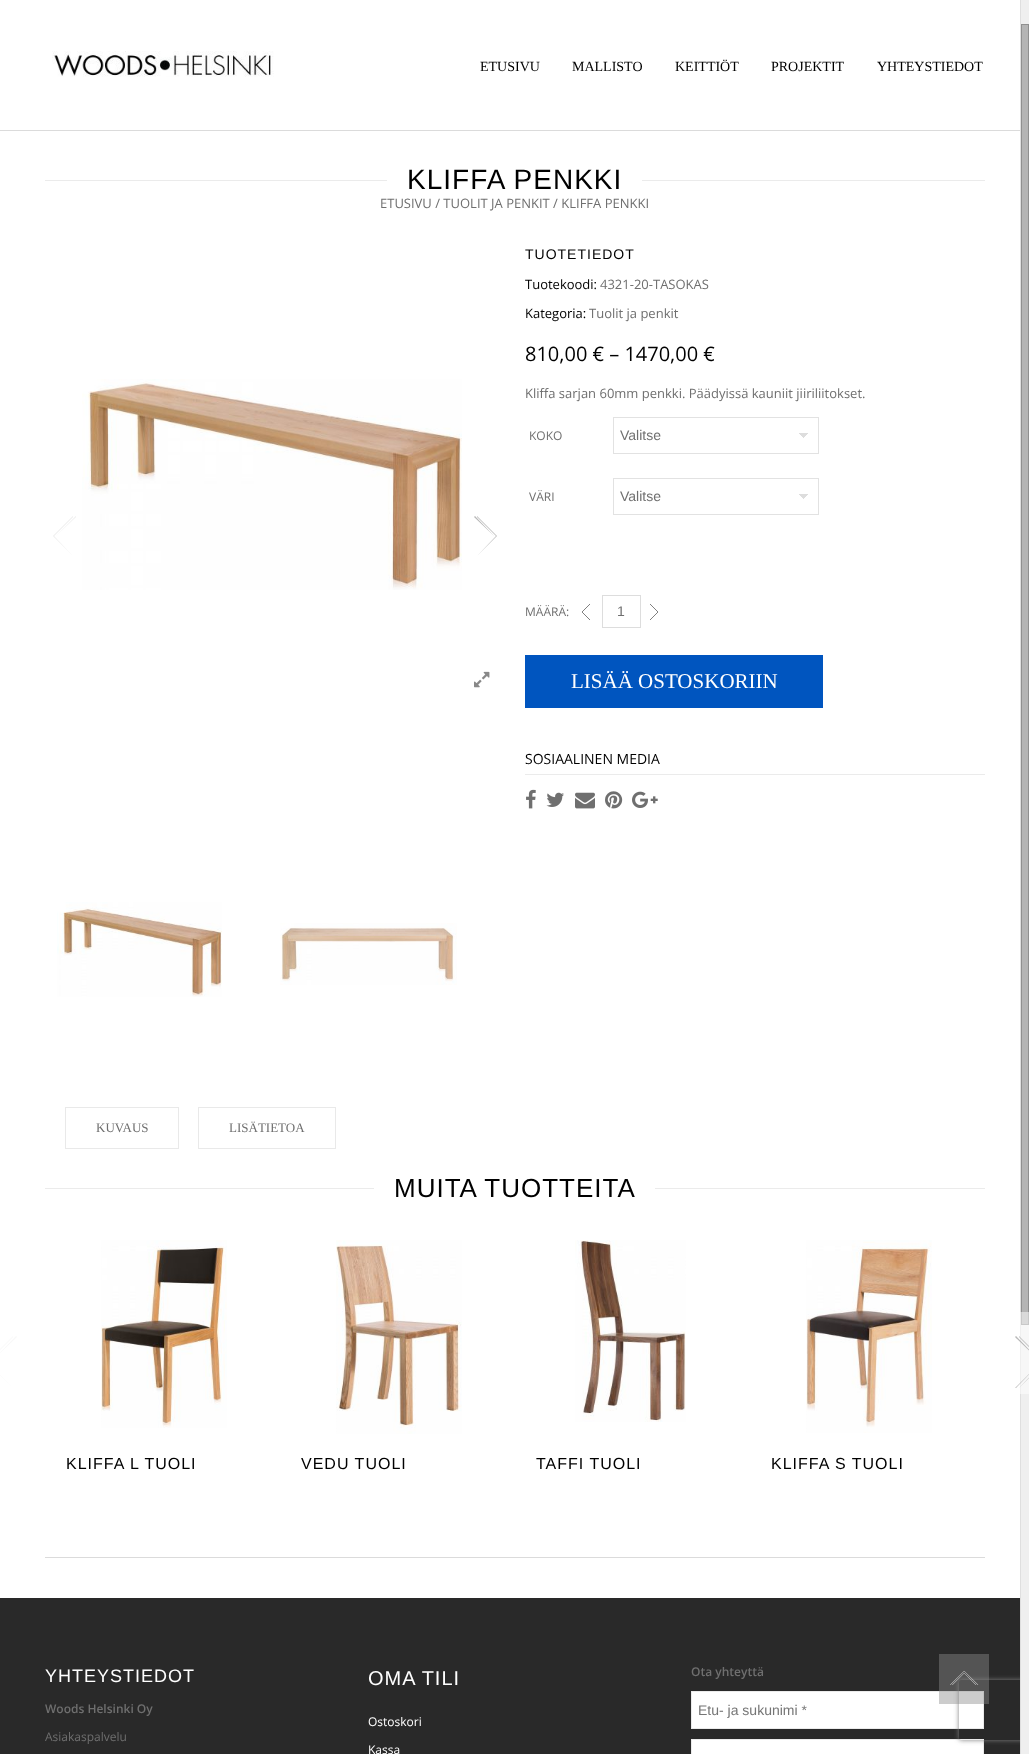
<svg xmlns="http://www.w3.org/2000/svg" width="1029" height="1754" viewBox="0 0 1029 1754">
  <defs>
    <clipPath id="clip1"><path d="M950 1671H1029V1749H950ZM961 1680H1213C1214 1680 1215 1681 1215 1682V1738C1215 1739 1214 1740 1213 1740H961C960 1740 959 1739 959 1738V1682C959 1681 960 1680 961 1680Z" clip-rule="evenodd"/></clipPath>
    <filter id="blur1" x="-50%" y="-200%" width="200%" height="500%"><feGaussianBlur stdDeviation="2.5"/></filter>
  </defs>
  <rect width="100%" height="100%" fill="#ffffff"/>
  <rect x="0" y="130" width="1020" height="1" fill="#dbdbdb"/>
  <image x="52" y="51" width="222" height="26" href="img1.png"/>
  <text x="480" y="71" font-family="Liberation Serif" font-size="14" fill="#000000">ETUSIVU</text>
  <text x="572" y="71" font-family="Liberation Serif" font-size="14" fill="#000000">MALLISTO</text>
  <text x="675" y="71" font-family="Liberation Serif" font-size="14" fill="#000000">KEITTIÖT</text>
  <text x="771" y="71" font-family="Liberation Serif" font-size="14" fill="#000000">PROJEKTIT</text>
  <text x="877" y="71" font-family="Liberation Serif" font-size="14" fill="#000000">YHTEYSTIEDOT</text>
  <rect x="45" y="180" width="940" height="1" fill="#ebebeb"/>
  <rect x="387" y="180" width="255" height="1" fill="#ffffff"/>
  <text x="407" y="189" font-family="Liberation Sans" font-size="28" letter-spacing="1" fill="#000000">KLIFFA PENKKI</text>
  <text x="380" y="208" font-family="Open Sans" font-size="13" fill="#6f6f6f">ETUSIVU / TUOLIT JA PENKIT / KLIFFA PENKKI</text>
  <image x="82" y="379" width="380" height="211" href="img2.png"/>
  <image x="474" y="671" width="16" height="17" href="img3.png"/>
  <path d="M73 517V516L53 536L73 556L54 536ZM56 536L76 517V516L56 536L76 556Z" fill="#eaeaea"/>
  <path d="M477 517V516L497 536L477 556L496 536ZM494 536L474 517L475 516L494 536L474 556Z" fill="#b8b8b8"/>
  <image x="57" y="902" width="165" height="95" href="img4.png"/>
  <image x="280" y="923" width="177" height="62" href="img5.png"/>
  <text x="525" y="259" font-family="Liberation Sans" font-size="14" letter-spacing="1" fill="#000000">TUOTETIEDOT</text>
  <text x="525" y="289" font-family="Open Sans" font-size="13" fill="#000000">Tuotekoodi:</text>
  <text x="600" y="289" font-family="Open Sans" font-size="13" fill="#6f6f6f">4321-20-TASOKAS</text>
  <text x="525" y="318" font-family="Open Sans" font-size="13" fill="#000000">Kategoria:</text>
  <text x="589" y="318" font-family="Open Sans" font-size="13" fill="#6f6f6f">Tuolit ja penkit</text>
  <text x="525" y="361" font-family="Open Sans" font-size="20" fill="#000000">810,00 € – 1470,00 €</text>
  <text x="525" y="398" font-family="Open Sans" font-size="13" fill="#6f6f6f">Kliffa sarjan 60mm penkki. Päädyissä kauniit jiiriliitokset.</text>
  <text x="529" y="440" font-family="Open Sans" font-size="12" fill="#6f6f6f">KOKO</text>
  <image x="799" y="433" width="9" height="5" href="img6.png"/>
  <rect x="613.5" y="417.5" width="205" height="36" fill="none" stroke="#e2e2e2"/>
  <text x="620" y="440" font-family="Liberation Sans" font-size="14" fill="#6f6f6f">Valitse</text>
  <text x="529" y="501" font-family="Open Sans" font-size="12" fill="#6f6f6f">VÄRI</text>
  <image x="799" y="494" width="9" height="5" href="img6.png"/>
  <rect x="613.5" y="478.5" width="205" height="36" fill="none" stroke="#e2e2e2"/>
  <text x="620" y="501" font-family="Liberation Sans" font-size="14" fill="#6f6f6f">Valitse</text>
  <text x="525" y="616" font-family="Open Sans" font-size="12" fill="#6f6f6f">MÄÄRÄ:</text>
  <image x="582" y="604" width="8" height="16" href="img7.png"/>
  <rect x="602.5" y="595.5" width="38" height="32" fill="none" stroke="#dddddd"/>
  <text x="617" y="616" font-family="Liberation Sans" font-size="14" fill="#6f6f6f">1</text>
  <image x="650" y="604" width="8" height="16" href="img8.png"/>
  <rect x="525" y="655" width="298" height="53" fill="#0055bf"/>
  <text x="571" y="688" font-family="Liberation Serif" font-size="21" fill="#ffffff">LISÄÄ OSTOSKORIIN</text>
  <rect x="525" y="774" width="460" height="1" fill="#ebebeb"/>
  <text x="525" y="764" font-family="Open Sans" font-size="14" fill="#000000">SOSIAALINEN MEDIA</text>
  <image x="526" y="789" width="10" height="20" href="img9.png"/>
  <image x="546" y="792" width="18" height="15" href="img10.png"/>
  <image x="575" y="792" width="20" height="17" href="img11.png"/>
  <image x="605" y="791" width="18" height="18" href="img12.png"/>
  <image x="632" y="791" width="26" height="17" href="img13.png"/>
  <rect x="65.5" y="1107.5" width="113" height="41" fill="none" stroke="#e9e9e9"/>
  <text x="96" y="1132" font-family="Liberation Serif" font-size="13" fill="#6f6f6f">KUVAUS</text>
  <rect x="198.5" y="1107.5" width="137" height="41" fill="none" stroke="#e9e9e9"/>
  <text x="229" y="1132" font-family="Liberation Serif" font-size="13" fill="#6f6f6f">LISÄTIETOA</text>
  <rect x="45" y="1188" width="940" height="1" fill="#ebebeb"/>
  <rect x="374" y="1188" width="281" height="1" fill="#ffffff"/>
  <text x="394" y="1197" font-family="Liberation Sans" font-size="26" letter-spacing="1" fill="#000000">MUITA TUOTTEITA</text>
  <path d="M13 1337V1336L-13 1362L13 1388L-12 1362ZM-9 1362L17 1337L16 1336L-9 1362L17 1388Z" fill="#f8f8f8"/>
  <rect x="0" y="1598" width="1020" height="156" fill="#292929"/>
  <rect x="691.5" y="1691.5" width="292" height="37" fill="#ffffff" stroke="#ebebeb"/>
  <rect x="691.5" y="1739.5" width="292" height="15" fill="#ffffff" stroke="#ebebeb"/>
  <g clip-path="url(#clip1)">
    <rect x="959" y="1680" width="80" height="60" rx="2" fill="#808080" filter="url(#blur1)"/>
  </g>
  <rect x="1021" y="0" width="8" height="1754" fill="#efefef"/>
  <rect x="1020" y="0" width="1" height="1754" fill="#dfdfdf"/>
  <rect x="1021.5" y="24.5" width="7" height="1300" fill="#b5b5b5" stroke="#909090"/>
  <rect x="1020" y="1312" width="9" height="82" fill="#ffffff" fill-opacity="0.5"/>
  <path d="M1019 1337V1336L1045 1362L1019 1388L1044 1362ZM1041 1362L1015 1337L1016 1336L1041 1362L1016 1388H1015Z" fill="#b8b8b8"/>
  <image x="101" y="1240" width="126" height="188" href="img14.png"/>
  <text x="66" y="1469" font-family="Liberation Sans" font-size="16" letter-spacing="1" fill="#000000">KLIFFA L TUOLI</text>
  <image x="336" y="1240" width="126" height="194" href="img15.png"/>
  <text x="301" y="1469" font-family="Liberation Sans" font-size="16" letter-spacing="1" fill="#000000">VEDU TUOLI</text>
  <image x="575" y="1240" width="111" height="182" href="img16.png"/>
  <text x="536" y="1469" font-family="Liberation Sans" font-size="16" letter-spacing="1" fill="#000000">TAFFI TUOLI</text>
  <image x="806" y="1240" width="126" height="193" href="img17.png"/>
  <text x="771" y="1469" font-family="Liberation Sans" font-size="16" letter-spacing="1" fill="#000000">KLIFFA S TUOLI</text>
  <rect x="45" y="1557" width="940" height="1" fill="#dbdbdb"/>
  <text x="45" y="1682" font-family="Liberation Sans" font-size="18" letter-spacing="1" fill="#ffffff">YHTEYSTIEDOT</text>
  <text x="45" y="1713" font-family="Open Sans" font-size="12" font-weight="600" fill="#6f6f6f">Woods Helsinki Oy</text>
  <text x="45" y="1741" font-family="Open Sans" font-size="12" fill="#6f6f6f">Asiakaspalvelu</text>
  <text x="368" y="1685" font-family="Liberation Sans" font-size="20" letter-spacing="1" fill="#ffffff">OMA TILI</text>
  <text x="368" y="1726" font-family="Open Sans" font-size="12" fill="#ffffff">Ostoskori</text>
  <text x="368" y="1754" font-family="Open Sans" font-size="12" fill="#ffffff">Kassa</text>
  <text x="691" y="1676" font-family="Open Sans" font-size="12" font-weight="600" fill="#6f6f6f">Ota yhteyttä</text>
  <text x="698" y="1715" font-family="Liberation Sans" font-size="14" fill="#757575">Etu- ja sukunimi *</text>
  <rect x="939" y="1654" width="50" height="50" fill="#ffffff" fill-opacity="0.3"/>
  <rect x="939" y="1654" width="50" height="50" fill="#000000" fill-opacity="0.2"/>
  <image x="950" y="1671" width="29" height="14" href="img18.png"/>
</svg>
